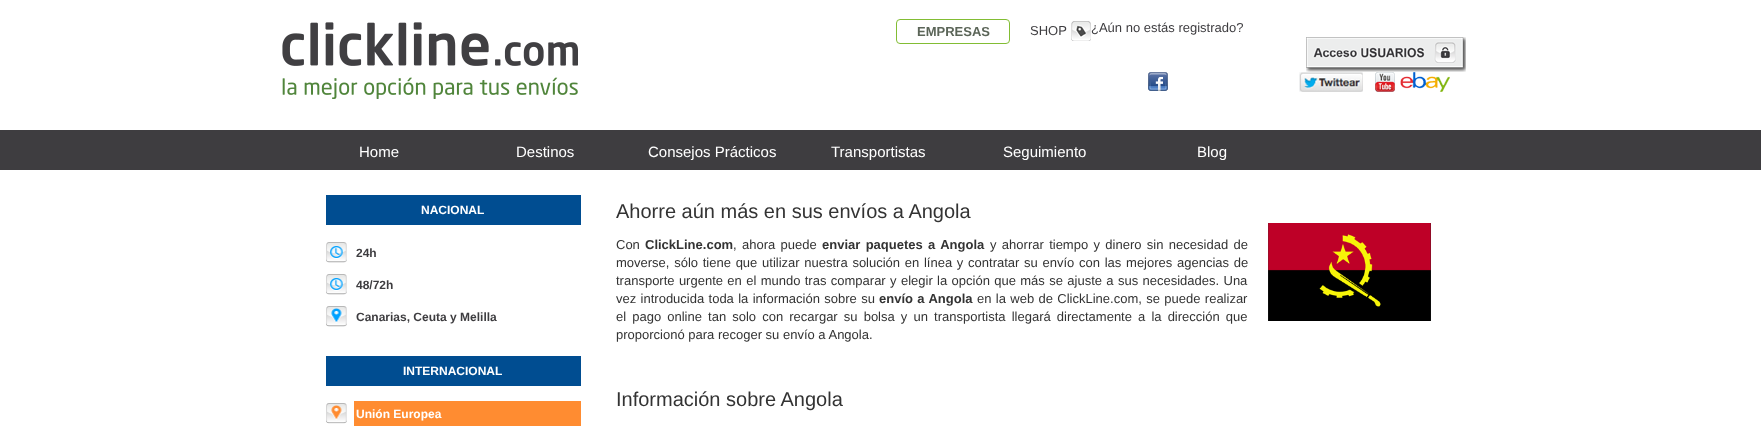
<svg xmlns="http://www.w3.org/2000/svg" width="1761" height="429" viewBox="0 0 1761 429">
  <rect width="100%" height="100%" fill="#ffffff"/>
  <image x="282" y="22" width="296" height="77" href="img1.png"/>
  <rect x="896.5" y="19.5" width="113" height="24" rx="3.5" fill="none" stroke="#82bd34"/>
  <text x="917" y="36" font-family="Liberation Sans" font-size="13" font-weight="bold" fill="#5b6558">EMPRESAS</text>
  <image x="1071" y="21" width="20" height="20" href="img2.png"/>
  <text x="1030" y="35" font-family="Liberation Sans" font-size="13" fill="#3e3d40">SHOP</text>
  <text x="1091" y="32" font-family="Liberation Sans" font-size="13" fill="#3e3d40">¿Aún no estás registrado?</text>
  <image x="1306" y="37" width="160" height="35" href="img3.png"/>
  <image x="1148" y="72" width="20" height="19" href="img4.png"/>
  <image x="1299" y="72" width="64" height="20" href="img5.png"/>
  <image x="1375" y="72" width="20" height="20" href="img6.png"/>
  <image x="1400" y="72" width="50" height="20" href="img7.png"/>
  <rect x="0" y="130" width="1761" height="40" fill="#3e3d40"/>
  <text x="359" y="157" font-family="Liberation Sans" font-size="15" fill="#ffffff">Home</text>
  <text x="516" y="157" font-family="Liberation Sans" font-size="15" fill="#ffffff">Destinos</text>
  <text x="648" y="157" font-family="Liberation Sans" font-size="15" fill="#ffffff">Consejos Prácticos</text>
  <text x="831" y="157" font-family="Liberation Sans" font-size="15" fill="#ffffff">Transportistas</text>
  <text x="1003" y="157" font-family="Liberation Sans" font-size="15" fill="#ffffff">Seguimiento</text>
  <text x="1197" y="157" font-family="Liberation Sans" font-size="15" fill="#ffffff">Blog</text>
  <rect x="326" y="195" width="255" height="30" fill="#004d91"/>
  <text x="421" y="214" font-family="Liberation Sans" font-size="12" font-weight="bold" fill="#ffffff">NACIONAL</text>
  <image x="326" y="242" width="21" height="21" href="img8.png"/>
  <text x="356" y="257" font-family="Liberation Sans" font-size="12" font-weight="bold" fill="#3e3d40">24h</text>
  <image x="326" y="274" width="21" height="21" href="img8.png"/>
  <text x="356" y="289" font-family="Liberation Sans" font-size="12" font-weight="bold" fill="#3e3d40">48/72h</text>
  <image x="326" y="306" width="21" height="21" href="img9.png"/>
  <text x="356" y="321" font-family="Liberation Sans" font-size="12" font-weight="bold" fill="#3e3d40">Canarias, Ceuta y Melilla</text>
  <rect x="326" y="356" width="255" height="30" fill="#004d91"/>
  <text x="403" y="375" font-family="Liberation Sans" font-size="12" font-weight="bold" fill="#ffffff">INTERNACIONAL</text>
  <rect x="354" y="401" width="227" height="25" fill="#ff8c31"/>
  <image x="326" y="401" width="28" height="25" href="img10.png"/>
  <text x="356" y="418" font-family="Liberation Sans" font-size="12" font-weight="bold" fill="#ffffff">Unión Europea</text>
  <text x="616" y="218" font-family="Liberation Sans" font-size="20" fill="#333333">Ahorre aún más en sus envíos a Angola</text>
  <text x="616" y="249" font-family="Liberation Sans" font-size="13" fill="#333333">Con</text>
  <text x="645" y="249" font-family="Liberation Sans" font-size="13" font-weight="bold" fill="#333333">ClickLine.com</text>
  <text x="733" y="249" word-spacing="1.75" font-family="Liberation Sans" font-size="13" fill="#333333">, ahora puede</text>
  <text x="822" y="249" word-spacing="1.75" font-family="Liberation Sans" font-size="13" font-weight="bold" fill="#333333">enviar paquetes a Angola</text>
  <text x="990" y="249" word-spacing="1.75" font-family="Liberation Sans" font-size="13" fill="#333333">y ahorrar tiempo y dinero sin necesidad de</text>
  <text x="616" y="267" word-spacing="1.1" font-family="Liberation Sans" font-size="13" fill="#333333">moverse, sólo tiene que utilizar nuestra solución en línea y contratar su envío con las mejores agencias de</text>
  <text x="616" y="285" word-spacing="0.75" font-family="Liberation Sans" font-size="13" fill="#333333">transporte urgente en el mundo tras comparar y elegir la opción que más se ajuste a sus necesidades. Una</text>
  <text x="616" y="303" word-spacing="0.75" font-family="Liberation Sans" font-size="13" fill="#333333">vez introducida toda la información sobre su</text>
  <text x="879" y="303" word-spacing="0.75" font-family="Liberation Sans" font-size="13" font-weight="bold" fill="#333333">envío a Angola</text>
  <text x="977" y="303" word-spacing="0.75" font-family="Liberation Sans" font-size="13" fill="#333333">en la web de ClickLine.com, se puede realizar</text>
  <text x="616" y="321" word-spacing="2.5" font-family="Liberation Sans" font-size="13" fill="#333333">el pago online tan solo con recargar su bolsa y un transportista llegará directamente a la dirección que</text>
  <text x="616" y="339" font-family="Liberation Sans" font-size="13" fill="#333333">proporcionó para recoger su envío a Angola.</text>
  <image x="1268" y="223" width="163" height="98" href="img11.png"/>
  <text x="616" y="406" font-family="Liberation Sans" font-size="20" fill="#333333">Información sobre Angola</text>
</svg>
